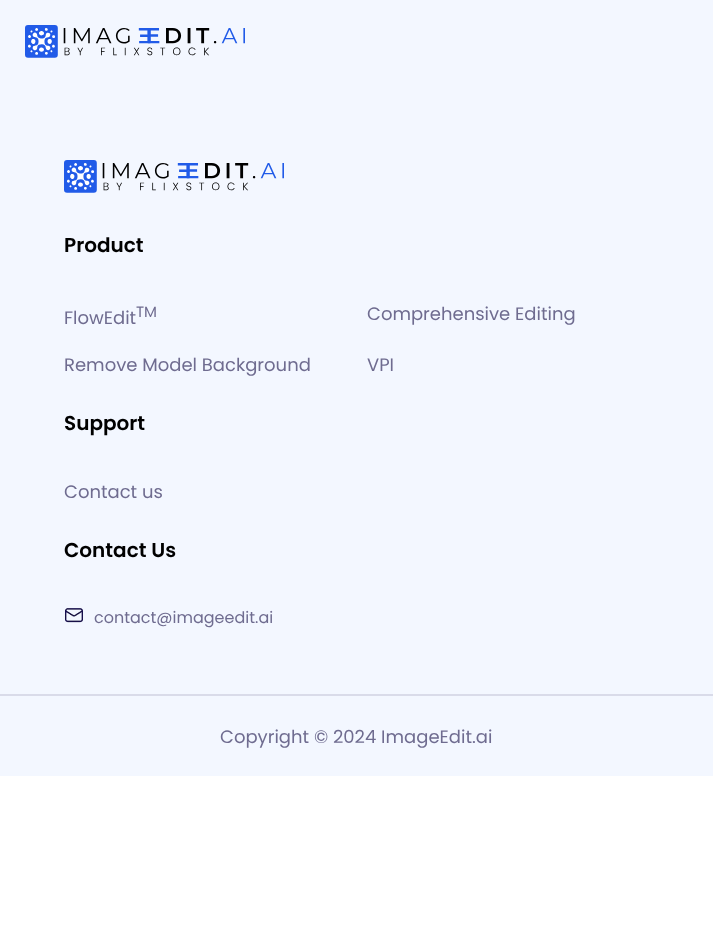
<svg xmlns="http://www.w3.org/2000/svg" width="713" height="925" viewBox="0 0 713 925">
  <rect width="100%" height="100%" fill="#ffffff"/>
  <rect x="0" y="0" width="713" height="776" fill="#f3f7ff"/>
  <image x="25" y="25" width="220" height="33" href="img1.png"/>
  <image x="64" y="160" width="220" height="33" href="img2.png"/>
  <text x="64" y="252" font-family="Poppins" font-size="20" font-weight="600" fill="#000000">Product</text>
  <text x="64" y="324" font-family="Poppins" font-size="18" fill="#6f6c90">FlowEdit</text>
  <text x="136" y="317" font-family="Poppins" font-size="15" fill="#6f6c90">TM</text>
  <text x="367" y="320" font-family="Poppins" font-size="18" fill="#6f6c90">Comprehensive Editing</text>
  <text x="64" y="371" font-family="Poppins" font-size="18" fill="#6f6c90">Remove Model Background</text>
  <text x="367" y="371" font-family="Poppins" font-size="18" fill="#6f6c90">VPI</text>
  <text x="64" y="430" font-family="Poppins" font-size="20" font-weight="600" fill="#000000">Support</text>
  <text x="64" y="498" font-family="Poppins" font-size="18" fill="#6f6c90">Contact us</text>
  <text x="64" y="557" font-family="Poppins" font-size="20" font-weight="600" fill="#000000">Contact Us</text>
  <image x="65" y="608" width="18" height="15" href="img3.png"/>
  <text x="94" y="623" font-family="Poppins" font-size="16" fill="#6f6c90">contact@imageedit.ai</text>
  <rect x="0" y="694" width="713" height="2" fill="#d9dbe9"/>
  <text x="220" y="743" font-family="Poppins" font-size="18" fill="#6f6c90">Copyright © 2024 ImageEdit.ai</text>
</svg>
